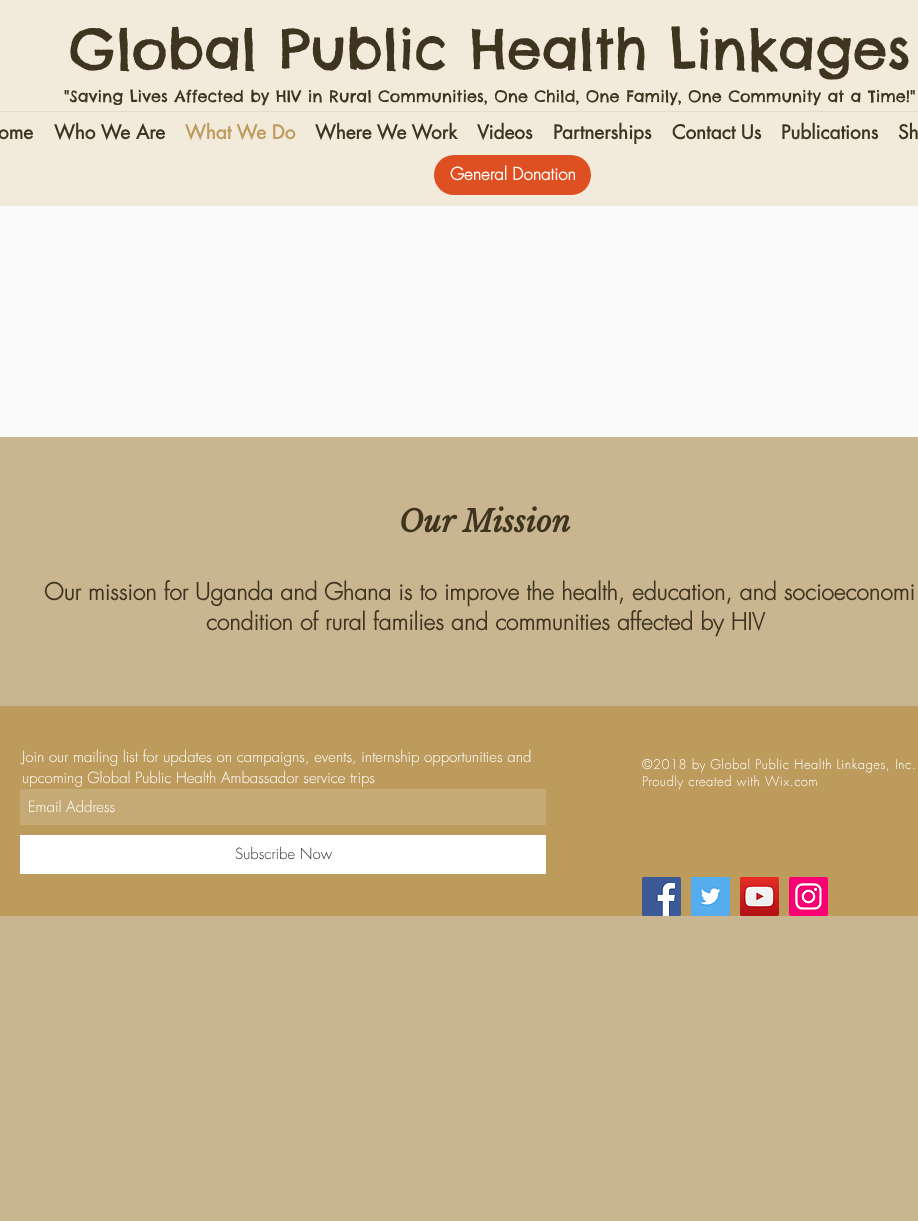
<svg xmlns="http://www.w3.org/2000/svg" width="918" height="1221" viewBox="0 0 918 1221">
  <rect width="100%" height="100%" fill="#c9b691"/>
  <rect x="0" y="0" width="918" height="206" fill="#f2eada"/>
  <text x="69" y="69" font-family="Chelsea Market" font-size="55" fill="#3f341f">Global Public Health Linkages</text>
  <text x="64" y="102" font-family="Chelsea Market" font-size="16" fill="#3f341f">"Saving Lives Affected by HIV in Rural Communities, One Child, One Family, One Community at a Time!"</text>
  <rect x="0" y="111" width="918" height="1" fill="#e2ddd4"/>
  <text x="-2" y="139" font-family="futura" font-size="19" font-weight="bold" fill="#3f341f">ome</text>
  <text x="54" y="139" font-family="futura" font-size="19" font-weight="bold" fill="#3f341f">Who We Are</text>
  <text x="185" y="139" font-family="futura" font-size="19" font-weight="bold" fill="#bc9b5d">What We Do</text>
  <text x="315" y="139" font-family="futura" font-size="19" font-weight="bold" fill="#3f341f">Where We Work</text>
  <text x="477" y="139" font-family="futura" font-size="19" font-weight="bold" fill="#3f341f">Videos</text>
  <text x="553" y="139" font-family="futura" font-size="19" font-weight="bold" fill="#3f341f">Partnerships</text>
  <text x="672" y="139" font-family="futura" font-size="19" font-weight="bold" fill="#3f341f">Contact Us</text>
  <text x="781" y="139" font-family="futura" font-size="19" font-weight="bold" fill="#3f341f">Publications</text>
  <text x="898" y="139" font-family="futura" font-size="19" font-weight="bold" fill="#3f341f">Sh</text>
  <rect x="434" y="155" width="157" height="40" rx="20" fill="#de5021"/>
  <text x="450" y="180" font-family="'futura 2'" font-size="17" font-weight="bold" fill="#ffffff">General Donation</text>
  <rect x="0" y="206" width="918" height="231" fill="#fafafa"/>
  <text x="399" y="532" font-family="Libre Baskerville" font-size="30" font-weight="bold" font-style="italic" fill="#3f341f">Our Mission</text>
  <text x="44" y="600" font-family="'futura 2'" font-size="23" font-weight="bold" fill="#3f341f">Our mission for Uganda and Ghana is to improve the health, education, and socioeconomi</text>
  <text x="206" y="630" font-family="'futura 2'" font-size="23" font-weight="bold" fill="#3f341f">condition of rural families and communities affected by HIV</text>
  <rect x="0" y="706" width="918" height="210" fill="#bc9b5d"/>
  <text x="22" y="762" font-family="futura" font-size="15" font-weight="300" fill="#ffffff">Join our mailing list for updates on campaigns, events, internship opportunities and</text>
  <text x="22" y="783" font-family="futura" font-size="15" font-weight="300" fill="#ffffff">upcoming Global Public Health Ambassador service trips</text>
  <rect x="20" y="789" width="526" height="36" fill="#c6aa75"/>
  <text x="28" y="812" font-family="futura" font-size="15" font-weight="300" fill="#ffffff">Email Address</text>
  <rect x="20" y="835" width="526" height="39" fill="#ffffff"/>
  <text x="235" y="859" font-family="futura" font-size="15" font-weight="300" fill="#2f2e2e">Subscribe Now</text>
  <text x="642" y="769" font-family="futura" font-size="13" font-weight="300" letter-spacing="0.5" fill="#ffffff">©2018 by Global Public Health Linkages, Inc.</text>
  <text x="642" y="786" font-family="futura" font-size="13" font-weight="300" letter-spacing="0.5" fill="#ffffff">Proudly created with</text>
  <text x="765" y="786" font-family="futura" font-size="13" font-weight="300" letter-spacing="0.5" fill="#ffffff">Wix.com</text>
  <image x="642" y="877" width="39" height="39" href="img1.png"/>
  <image x="691" y="877" width="39" height="39" href="img2.png"/>
  <image x="740" y="877" width="39" height="39" href="img3.png"/>
  <image x="789" y="877" width="39" height="39" href="img4.png"/>
</svg>
